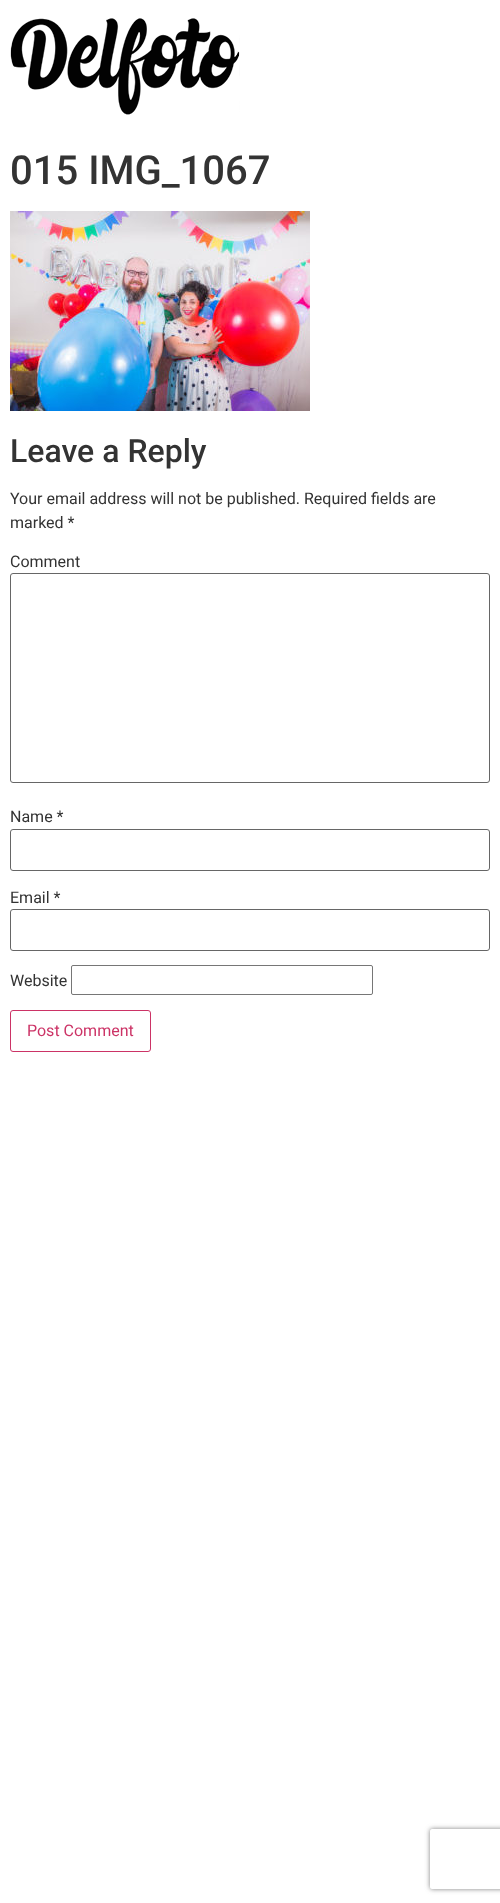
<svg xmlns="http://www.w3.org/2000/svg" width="500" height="1903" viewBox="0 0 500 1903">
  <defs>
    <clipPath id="clip1"><path d="M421 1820H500V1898H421ZM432 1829H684C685 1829 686 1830 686 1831V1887C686 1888 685 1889 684 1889H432C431 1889 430 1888 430 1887V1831C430 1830 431 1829 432 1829Z" clip-rule="evenodd"/></clipPath>
    <filter id="blur1" x="-50%" y="-200%" width="200%" height="500%"><feGaussianBlur stdDeviation="2.5"/></filter>
  </defs>
  <rect width="100%" height="100%" fill="#ffffff"/>
  <image x="10" y="18" width="230" height="97" href="img1.png"/>
  <text x="10" y="184" font-family="Roboto" font-size="40" font-weight="500" fill="#333333">015 IMG_1067</text>
  <image x="10" y="211" width="300" height="200" href="img2.png"/>
  <text x="10" y="462" font-family="Roboto" font-size="32" font-weight="500" fill="#333333">Leave a Reply</text>
  <text x="10" y="504" font-family="Roboto" font-size="16" fill="#333333">Your email address will not be published. Required fields are</text>
  <text x="10" y="528" font-family="Roboto" font-size="16" fill="#333333">marked *</text>
  <text x="10" y="567" font-family="Roboto" font-size="16" fill="#333333">Comment</text>
  <rect x="10.5" y="573.5" width="479" height="209" rx="2.5" fill="none" stroke="#666666"/>
  <text x="10" y="822" font-family="Roboto" font-size="16" fill="#333333">Name *</text>
  <rect x="10.5" y="829.5" width="479" height="41" rx="2.5" fill="none" stroke="#666666"/>
  <text x="10" y="903" font-family="Roboto" font-size="16" fill="#333333">Email *</text>
  <rect x="10.5" y="909.5" width="479" height="41" rx="2.5" fill="none" stroke="#666666"/>
  <text x="10" y="986" font-family="Roboto" font-size="16" fill="#333333">Website</text>
  <rect x="71.5" y="965.5" width="301" height="29" rx="1.5" fill="none" stroke="#767676"/>
  <rect x="10.5" y="1010.5" width="140" height="41" rx="2.5" fill="none" stroke="#cc3366"/>
  <text x="27" y="1036" font-family="Roboto" font-size="16" fill="#cc3366">Post Comment</text>
  <g clip-path="url(#clip1)">
    <rect x="430" y="1829" width="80" height="60" rx="2" fill="#808080" filter="url(#blur1)"/>
  </g>
</svg>
